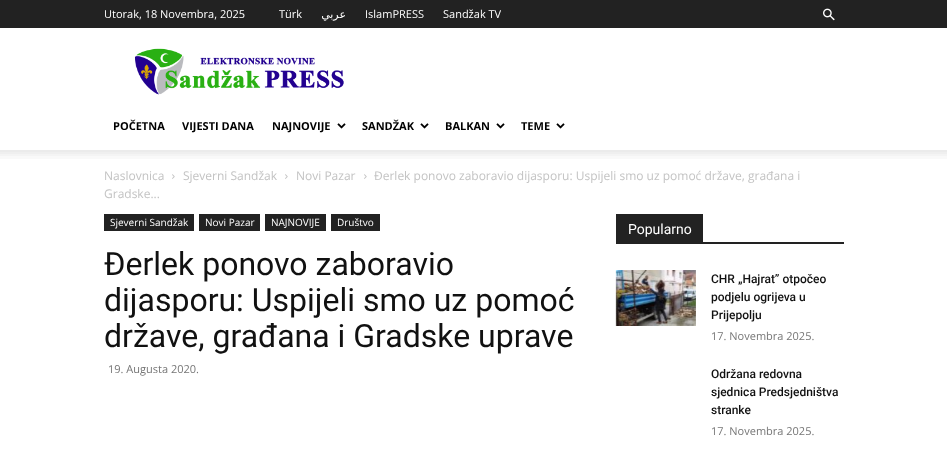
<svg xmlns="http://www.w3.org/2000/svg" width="947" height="455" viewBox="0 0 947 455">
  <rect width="100%" height="100%" fill="#ffffff"/>
  <rect x="0" y="0" width="947" height="28" fill="#222222"/>
  <text x="104" y="18" font-family="Open Sans" font-size="11" fill="#ffffff">Utorak, 18 Novembra, 2025</text>
  <text x="279" y="18" font-family="Open Sans" font-size="11" fill="#ffffff">Türk</text>
  <text x="346" y="18" font-family="DejaVu Sans" font-size="11" direction="rtl" fill="#ffffff">عربي</text>
  <text x="365" y="18" font-family="Open Sans" font-size="11" fill="#ffffff">IslamPRESS</text>
  <text x="443" y="18" font-family="Open Sans" font-size="11" fill="#ffffff">Sandžak TV</text>
  <image x="823" y="8" width="12" height="13" href="img1.png"/>
  <image x="134" y="48" width="210" height="47" href="img2.png"/>
  <text x="113" y="130" font-family="Open Sans" font-size="11" font-weight="bold" fill="#000000">POČETNA</text>
  <text x="182" y="130" font-family="Open Sans" font-size="11" font-weight="bold" fill="#000000">VIJESTI DANA</text>
  <text x="272" y="130" font-family="Open Sans" font-size="11" font-weight="bold" fill="#000000">NAJNOVIJE</text>
  <image x="337" y="123" width="9" height="6" href="img3.png"/>
  <text x="362" y="130" font-family="Open Sans" font-size="11" font-weight="bold" fill="#000000">SANDŽAK</text>
  <image x="420" y="123" width="9" height="6" href="img3.png"/>
  <text x="445" y="130" font-family="Open Sans" font-size="11" font-weight="bold" fill="#000000">BALKAN</text>
  <image x="496" y="123" width="9" height="6" href="img3.png"/>
  <text x="521" y="130" font-family="Open Sans" font-size="11" font-weight="bold" fill="#000000">TEME</text>
  <image x="556" y="123" width="9" height="6" href="img3.png"/>
  <image x="0" y="150" width="947" height="9" href="img4.png"/>
  <text x="104" y="180" font-family="Open Sans" font-size="12" fill="#c3c3c3">Naslovnica</text>
  <image x="172" y="174" width="3" height="5" href="img5.png"/>
  <text x="183" y="180" font-family="Open Sans" font-size="12" fill="#c3c3c3">Sjeverni Sandžak</text>
  <image x="285" y="174" width="3" height="5" href="img5.png"/>
  <text x="296" y="180" font-family="Open Sans" font-size="12" fill="#c3c3c3">Novi Pazar</text>
  <image x="364" y="174" width="3" height="5" href="img5.png"/>
  <text x="374" y="180" font-family="Open Sans" font-size="12" fill="#c3c3c3">Đerlek ponovo zaboravio dijasporu: Uspijeli smo uz pomoć države, građana i</text>
  <text x="104" y="198" font-family="Open Sans" font-size="12" fill="#c3c3c3">Gradske...</text>
  <rect x="104" y="214" width="90" height="17" fill="#222222"/>
  <text x="110" y="226" font-family="Open Sans" font-size="10" fill="#ffffff">Sjeverni Sandžak</text>
  <rect x="199" y="214" width="61" height="17" fill="#222222"/>
  <text x="205" y="226" font-family="Open Sans" font-size="10" fill="#ffffff">Novi Pazar</text>
  <rect x="265" y="214" width="61" height="17" fill="#222222"/>
  <text x="271" y="226" font-family="Open Sans" font-size="10" fill="#ffffff">NAJNOVIJE</text>
  <rect x="331" y="214" width="49" height="17" fill="#222222"/>
  <text x="337" y="226" font-family="Open Sans" font-size="10" fill="#ffffff">Društvo</text>
  <text x="104" y="275" font-family="Roboto" font-size="32" fill="#111111">Đerlek ponovo zaboravio</text>
  <text x="104" y="311" font-family="Roboto" font-size="32" fill="#111111">dijasporu: Uspijeli smo uz pomoć</text>
  <text x="104" y="347" font-family="Roboto" font-size="32" fill="#111111">države, građana i Gradske uprave</text>
  <text x="108" y="373" font-family="Open Sans" font-size="11" fill="#767676">19. Augusta 2020.</text>
  <rect x="616" y="242" width="228" height="2" fill="#222222"/>
  <rect x="616" y="214" width="87" height="28" fill="#222222"/>
  <text x="628" y="234" font-family="Roboto" font-size="14" fill="#ffffff">Popularno</text>
  <image x="615" y="270" width="81" height="56" href="img6.png"/>
  <text x="711" y="283" font-family="Roboto" font-size="12" font-weight="500" fill="#111111">CHR „Hajrat” otpočeo</text>
  <text x="711" y="301" font-family="Roboto" font-size="12" font-weight="500" fill="#111111">podjelu ogrijeva u</text>
  <text x="711" y="319" font-family="Roboto" font-size="12" font-weight="500" fill="#111111">Prijepolju</text>
  <text x="711" y="340" font-family="Open Sans" font-size="11" fill="#767676">17. Novembra 2025.</text>
  <text x="711" y="378" font-family="Roboto" font-size="12" font-weight="500" fill="#111111">Održana redovna</text>
  <text x="711" y="396" font-family="Roboto" font-size="12" font-weight="500" fill="#111111">sjednica Predsjedništva</text>
  <text x="711" y="414" font-family="Roboto" font-size="12" font-weight="500" fill="#111111">stranke</text>
  <text x="711" y="435" font-family="Open Sans" font-size="11" fill="#767676">17. Novembra 2025.</text>
</svg>
